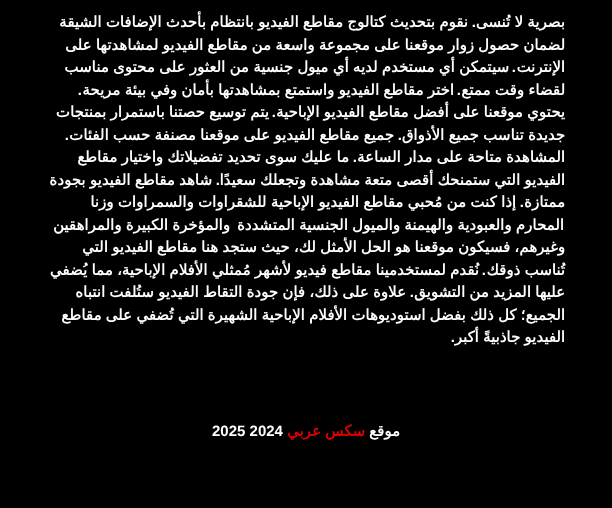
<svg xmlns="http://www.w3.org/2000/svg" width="612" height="508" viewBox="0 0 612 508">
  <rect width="100%" height="100%" fill="#000000"/>
  <text x="565" y="27" word-spacing="-0.5" font-family="DejaVu Sans" font-size="15" font-weight="bold" direction="rtl" fill="#ffffff">بصرية لا تُنسى</text>
  <text x="476" y="27" font-family="Liberation Sans" font-size="15" font-weight="bold" direction="rtl" fill="#ffffff">.</text>
  <text x="468" y="27" word-spacing="-0.5" font-family="DejaVu Sans" font-size="15" font-weight="bold" direction="rtl" fill="#ffffff">نقوم بتحديث كتالوج مقاطع الفيديو بانتظام بأحدث الإضافات الشيقة</text>
  <text x="565" y="50" word-spacing="-0.6" font-family="DejaVu Sans" font-size="15" font-weight="bold" direction="rtl" fill="#ffffff">لضمان حصول زوار موقعنا على مجموعة واسعة من مقاطع الفيديو لمشاهدتها على</text>
  <text x="565" y="72" font-family="DejaVu Sans" font-size="15" font-weight="bold" direction="rtl" fill="#ffffff">الإنترنت</text>
  <text x="516" y="72" font-family="Liberation Sans" font-size="15" font-weight="bold" direction="rtl" fill="#ffffff">.</text>
  <text x="509" y="72" word-spacing="-0.5" font-family="DejaVu Sans" font-size="15" font-weight="bold" direction="rtl" fill="#ffffff">سيتمكن أي مستخدم لديه أي ميول جنسية من العثور على محتوى مناسب</text>
  <text x="565" y="95" word-spacing="-0.5" font-family="DejaVu Sans" font-size="15" font-weight="bold" direction="rtl" fill="#ffffff">لقضاء وقت ممتع</text>
  <text x="461" y="95" font-family="Liberation Sans" font-size="15" font-weight="bold" direction="rtl" fill="#ffffff">.</text>
  <text x="454" y="95" word-spacing="-0.5" font-family="DejaVu Sans" font-size="15" font-weight="bold" direction="rtl" fill="#ffffff">اختر مقاطع الفيديو واستمتع بمشاهدتها بأمان وفي بيئة مريحة</text>
  <text x="82" y="95" font-family="Liberation Sans" font-size="15" font-weight="bold" direction="rtl" fill="#ffffff">.</text>
  <text x="565" y="117" word-spacing="-0.5" font-family="DejaVu Sans" font-size="15" font-weight="bold" direction="rtl" fill="#ffffff">يحتوي موقعنا على أفضل مقاطع الفيديو الإباحية</text>
  <text x="276" y="117" font-family="Liberation Sans" font-size="15" font-weight="bold" direction="rtl" fill="#ffffff">.</text>
  <text x="269" y="117" word-spacing="-0.5" font-family="DejaVu Sans" font-size="15" font-weight="bold" direction="rtl" fill="#ffffff">يتم توسيع حصتنا باستمرار بمنتجات</text>
  <text x="565" y="140" word-spacing="-0.5" font-family="DejaVu Sans" font-size="15" font-weight="bold" direction="rtl" fill="#ffffff">جديدة تناسب جميع الأذواق</text>
  <text x="402" y="140" font-family="Liberation Sans" font-size="15" font-weight="bold" direction="rtl" fill="#ffffff">.</text>
  <text x="394" y="140" word-spacing="-0.5" font-family="DejaVu Sans" font-size="15" font-weight="bold" direction="rtl" fill="#ffffff">جميع مقاطع الفيديو على موقعنا مصنفة حسب الفئات</text>
  <text x="69" y="140" font-family="Liberation Sans" font-size="15" font-weight="bold" direction="rtl" fill="#ffffff">.</text>
  <text x="565" y="162" word-spacing="-0.5" font-family="DejaVu Sans" font-size="15" font-weight="bold" direction="rtl" fill="#ffffff">المشاهدة متاحة على مدار الساعة</text>
  <text x="357" y="162" font-family="Liberation Sans" font-size="15" font-weight="bold" direction="rtl" fill="#ffffff">.</text>
  <text x="349" y="162" word-spacing="-0.5" font-family="DejaVu Sans" font-size="15" font-weight="bold" direction="rtl" fill="#ffffff">ما عليك سوى تحديد تفضيلاتك واختيار مقاطع</text>
  <text x="565" y="185" word-spacing="-0.5" font-family="DejaVu Sans" font-size="15" font-weight="bold" direction="rtl" fill="#ffffff">الفيديو التي ستمنحك أقصى متعة مشاهدة وتجعلك سعيدًا</text>
  <text x="220" y="185" font-family="Liberation Sans" font-size="15" font-weight="bold" direction="rtl" fill="#ffffff">.</text>
  <text x="212" y="185" word-spacing="-0.5" font-family="DejaVu Sans" font-size="15" font-weight="bold" direction="rtl" fill="#ffffff">شاهد مقاطع الفيديو بجودة</text>
  <text x="565" y="207" font-family="DejaVu Sans" font-size="15" font-weight="bold" direction="rtl" fill="#ffffff">ممتازة</text>
  <text x="524" y="207" font-family="Liberation Sans" font-size="15" font-weight="bold" direction="rtl" fill="#ffffff">.</text>
  <text x="516" y="207" word-spacing="-0.5" font-family="DejaVu Sans" font-size="15" font-weight="bold" direction="rtl" fill="#ffffff">إذا كنت من مُحبي مقاطع الفيديو الإباحية للشقراوات والسمراوات وزنا</text>
  <text x="564" y="230" word-spacing="-0.5" font-family="DejaVu Sans" font-size="15" font-weight="bold" direction="rtl" fill="#ffffff">المحارم والعبودية والهيمنة والميول الجنسية المتشددة</text>
  <text x="230" y="230" word-spacing="-0.5" font-family="DejaVu Sans" font-size="15" font-weight="bold" direction="rtl" fill="#ffffff">والمؤخرة الكبيرة والمراهقين</text>
  <text x="565" y="252" word-spacing="-0.6" font-family="DejaVu Sans" font-size="15" font-weight="bold" direction="rtl" fill="#ffffff">وغيرهم، فسيكون موقعنا هو الحل الأمثل لك، حيث ستجد هنا مقاطع الفيديو التي</text>
  <text x="565" y="275" word-spacing="-0.5" font-family="DejaVu Sans" font-size="15" font-weight="bold" direction="rtl" fill="#ffffff">تُناسب ذوقك</text>
  <text x="486" y="275" font-family="Liberation Sans" font-size="15" font-weight="bold" direction="rtl" fill="#ffffff">.</text>
  <text x="479" y="275" word-spacing="-0.5" font-family="DejaVu Sans" font-size="15" font-weight="bold" direction="rtl" fill="#ffffff">نُقدم لمستخدمينا مقاطع فيديو لأشهر مُمثلي الأفلام الإباحية، مما يُضفي</text>
  <text x="565" y="297" word-spacing="-0.5" font-family="DejaVu Sans" font-size="15" font-weight="bold" direction="rtl" fill="#ffffff">عليها المزيد من التشويق</text>
  <text x="414" y="297" font-family="Liberation Sans" font-size="15" font-weight="bold" direction="rtl" fill="#ffffff">.</text>
  <text x="406" y="297" word-spacing="-0.5" font-family="DejaVu Sans" font-size="15" font-weight="bold" direction="rtl" fill="#ffffff">علاوة على ذلك، فإن جودة التقاط الفيديو ستُلفت انتباه</text>
  <text x="565" y="320" word-spacing="-0.6" font-family="DejaVu Sans" font-size="15" font-weight="bold" direction="rtl" fill="#ffffff">الجميع؛ كل ذلك بفضل استوديوهات الأفلام الإباحية الشهيرة التي تُضفي على مقاطع</text>
  <text x="565" y="342" word-spacing="-0.6" font-family="DejaVu Sans" font-size="15" font-weight="bold" direction="rtl" fill="#ffffff">الفيديو جاذبيةً أكبر</text>
  <text x="455" y="342" font-family="Liberation Sans" font-size="15" font-weight="bold" direction="rtl" fill="#ffffff">.</text>
  <text x="400" y="436" font-family="DejaVu Sans" font-size="15" font-weight="bold" direction="rtl" fill="#ffffff">موقع</text>
  <text x="365" y="436" word-spacing="-0.6" font-family="DejaVu Sans" font-size="15" font-weight="bold" direction="rtl" fill="#e50000">سكس عربي</text>
  <text x="212" y="436" font-family="Liberation Sans" font-size="15" font-weight="bold" fill="#ffffff">2025 2024</text>
</svg>
